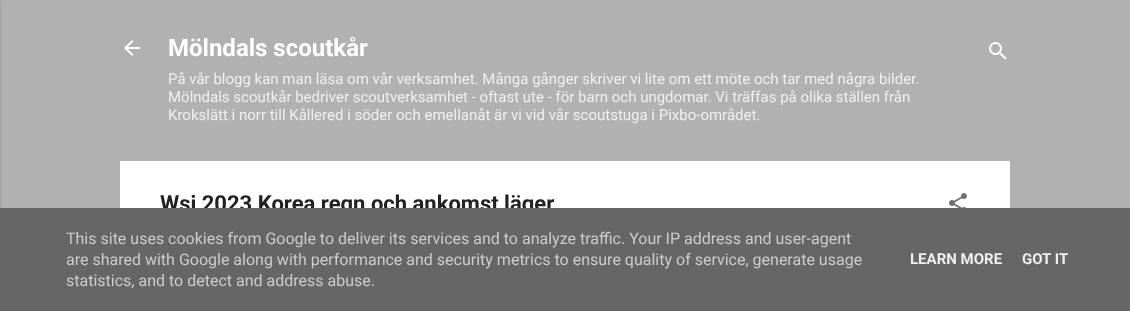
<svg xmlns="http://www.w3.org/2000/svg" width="1130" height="311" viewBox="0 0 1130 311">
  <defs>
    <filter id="blur1" x="-50%" y="-200%" width="200%" height="500%"><feGaussianBlur stdDeviation="1.5"/></filter>
  </defs>
  <rect width="100%" height="100%" fill="#b1b1b1"/>
  <rect x="-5" y="1" width="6" height="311" fill="#000000" fill-opacity="0.1" filter="url(#blur1)"/>
  <image x="124" y="40" width="16" height="16" href="img1.png"/>
  <text x="168" y="56" font-family="Roboto" font-size="24" font-weight="bold" fill="#ffffff">Mölndals scoutkår</text>
  <text x="168" y="84" font-family="Roboto" font-size="15" fill="#efefef">På vår blogg kan man läsa om vår verksamhet. Många gånger skriver vi lite om ett möte och tar med några bilder.</text>
  <text x="168" y="102" font-family="Roboto" font-size="15" fill="#efefef">Mölndals scoutkår bedriver scoutverksamhet - oftast ute - för barn och ungdomar. Vi träffas på olika ställen från</text>
  <text x="168" y="120" font-family="Roboto" font-size="15" fill="#efefef">Krokslätt i norr till Kållered i söder och emellanåt är vi vid vår scoutstuga i Pixbo-området.</text>
  <image x="989" y="42" width="18" height="18" href="img2.png"/>
  <rect x="120" y="161" width="890" height="47" fill="#ffffff"/>
  <text x="160" y="211" font-family="Roboto" font-size="22" font-weight="bold" fill="#212121">Wsj 2023 Korea regn och ankomst läger</text>
  <image x="949" y="193" width="18" height="15" href="img3.png"/>
  <rect x="0" y="208" width="1130" height="103" fill="#666666"/>
  <text x="66" y="244" font-family="Roboto" font-size="16" fill="#cccccc">This site uses cookies from Google to deliver its services and to analyze traffic. Your IP address and user-agent</text>
  <text x="66" y="265" font-family="Roboto" font-size="16" fill="#cccccc">are shared with Google along with performance and security metrics to ensure quality of service, generate usage</text>
  <text x="66" y="286" font-family="Roboto" font-size="16" fill="#cccccc">statistics, and to detect and address abuse.</text>
  <text x="910" y="264" font-family="Roboto" font-size="15" font-weight="bold" fill="#efefef">LEARN MORE</text>
  <text x="1022" y="264" font-family="Roboto" font-size="15" font-weight="bold" fill="#efefef">GOT IT</text>
</svg>
